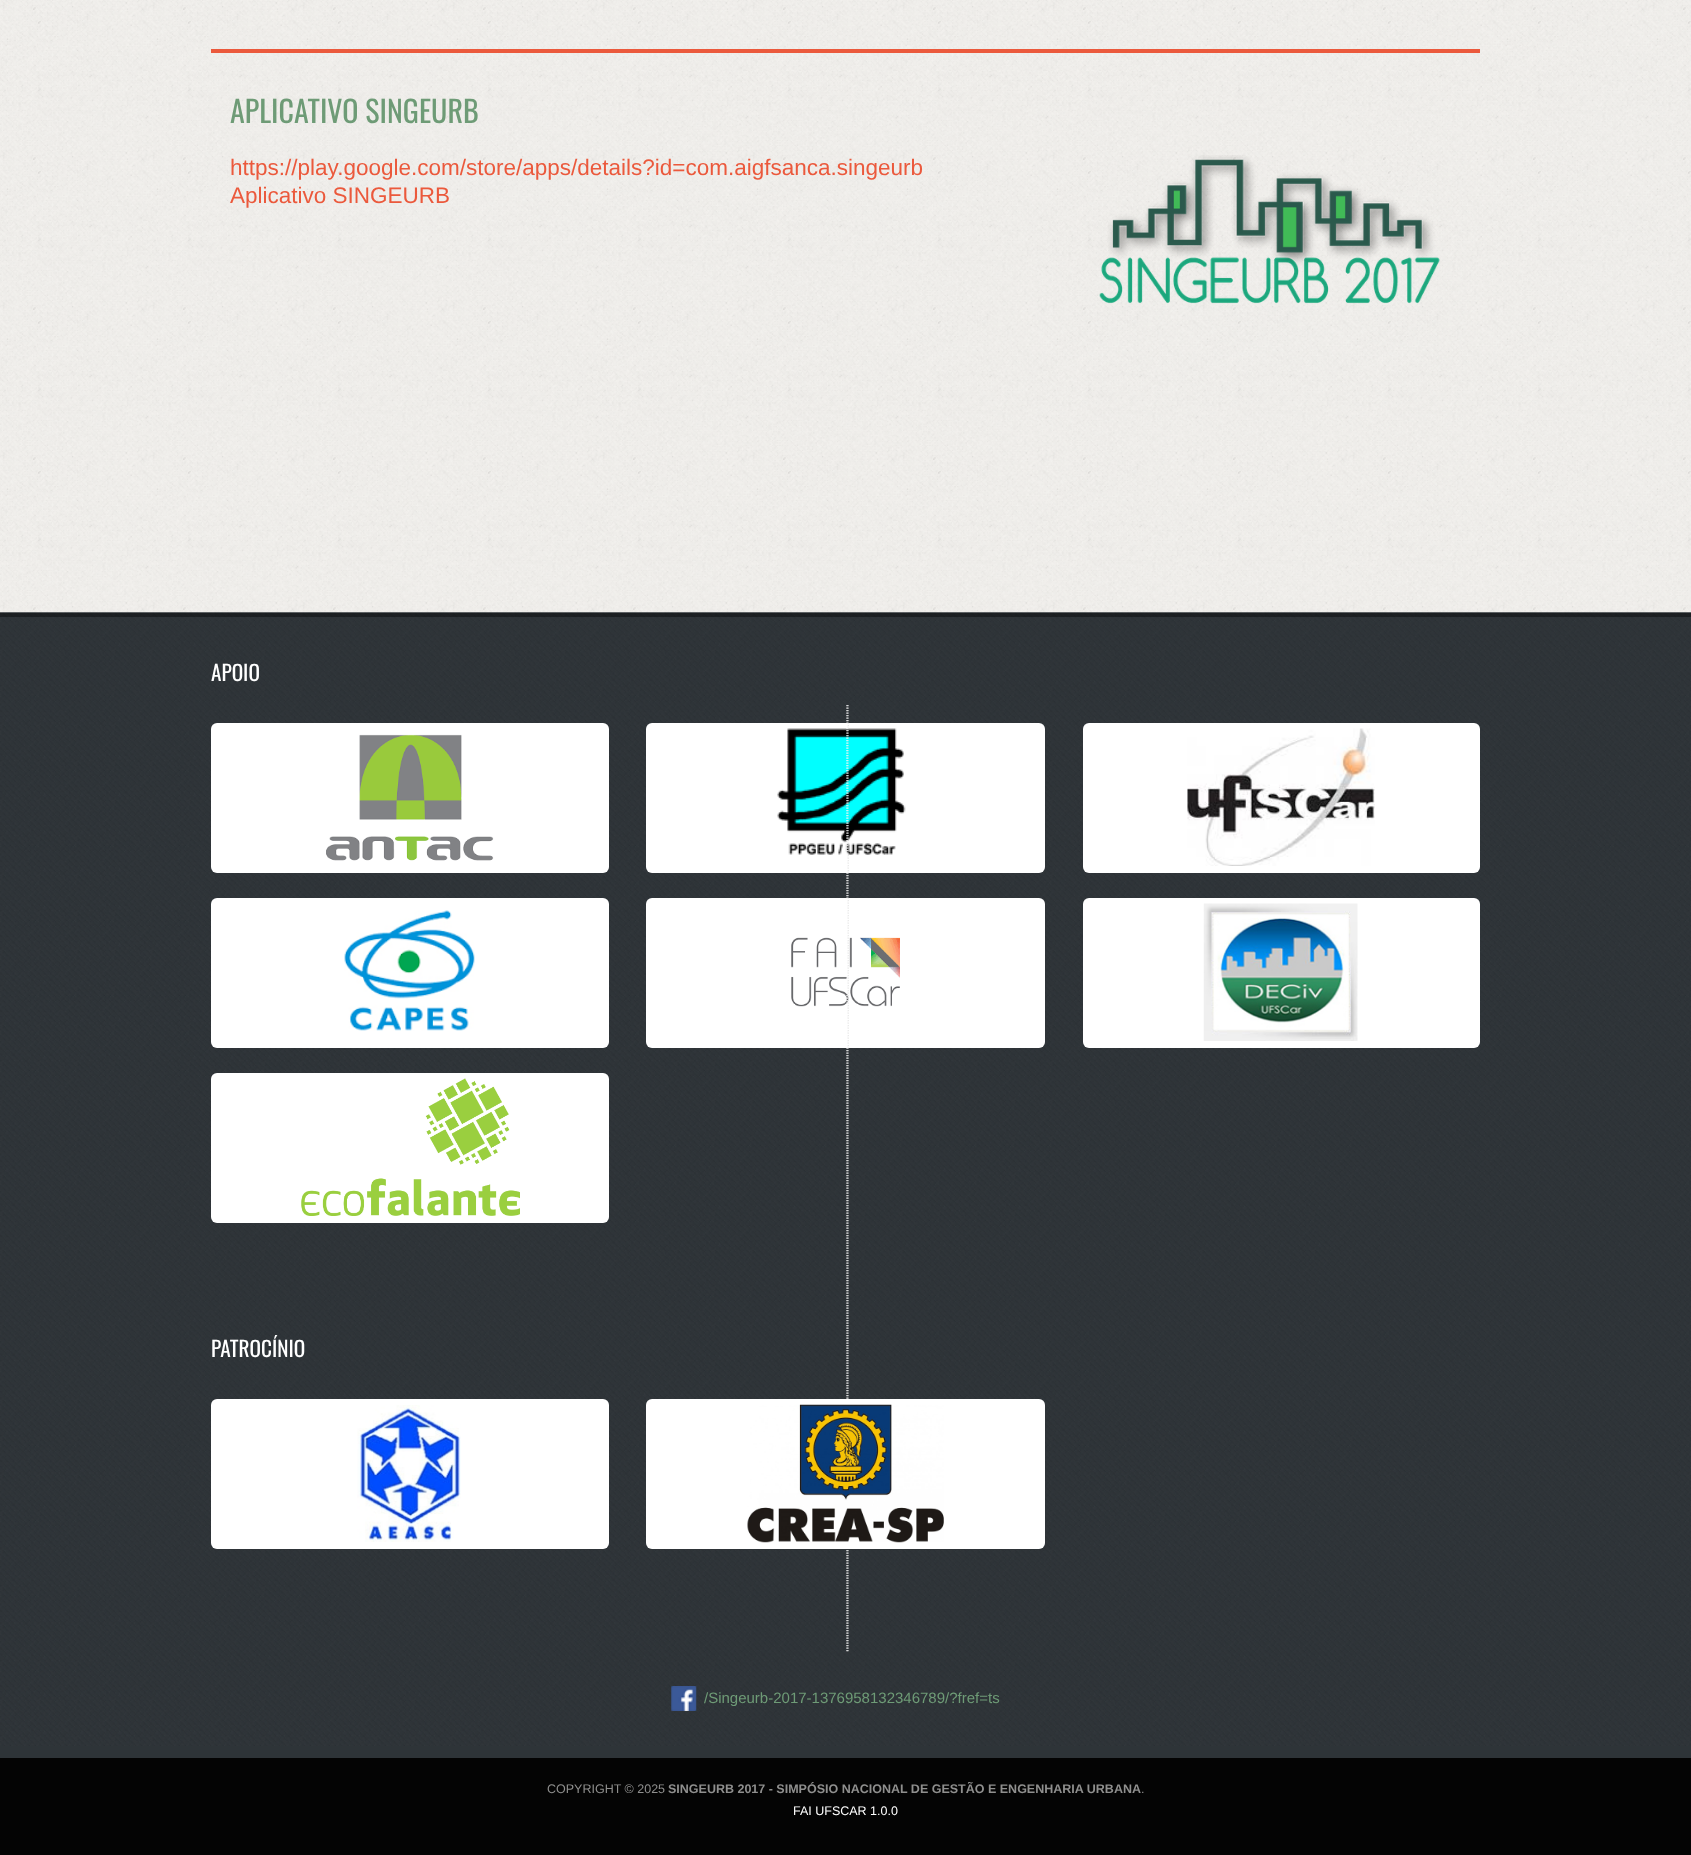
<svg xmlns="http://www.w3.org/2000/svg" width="1691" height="1855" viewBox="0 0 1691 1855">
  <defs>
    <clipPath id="clip1"><rect x="211" y="1335" width="1269" height="251"/></clipPath>
  </defs>
  <rect width="100%" height="100%" fill="#ffffff"/>
  <image x="0" y="0" width="1691" height="613" href="img1.png"/>
  <rect x="211" y="49" width="1269" height="4" fill="#eb593c"/>
  <text x="230" y="123" font-family="Oswald" font-size="30" fill="#6e9b76">APLICATIVO SINGEURB</text>
  <text x="230" y="175" font-family="Liberation Sans" font-size="22.5" fill="#eb593c">https://play.google.com/store/apps/details?id=com.aigfsanca.singeurb</text>
  <text x="230" y="203" font-family="Liberation Sans" font-size="22.5" fill="#eb593c">Aplicativo SINGEURB</text>
  <image x="1099" y="155" width="341" height="149" href="img2.png"/>
  <rect x="0" y="1758" width="1691" height="97" fill="#040404"/>
  <rect x="0" y="1746" width="1691" height="12" fill="#2e3438"/>
  <image x="0" y="612" width="1691" height="1134" href="img3.png"/>
  <rect x="0" y="613" width="1691" height="4" fill="#000000" fill-opacity="0.38"/>
  <text x="211" y="681" font-family="Oswald" font-size="21.25" fill="#ffffff">APOIO</text>
  <rect x="211" y="723" width="398" height="150" rx="6" fill="#ffffff"/>
  <image x="326" y="734" width="168" height="127" href="img4.png"/>
  <rect x="646" y="723" width="399" height="150" rx="6" fill="#ffffff"/>
  <image x="777" y="728" width="129" height="127" href="img5.png"/>
  <rect x="1083" y="723" width="397" height="150" rx="6" fill="#ffffff"/>
  <image x="1187" y="728" width="188" height="138" href="img6.png"/>
  <rect x="211" y="898" width="398" height="150" rx="6" fill="#ffffff"/>
  <image x="344" y="910" width="131" height="121" href="img7.png"/>
  <rect x="646" y="898" width="399" height="150" rx="6" fill="#ffffff"/>
  <image x="791" y="937" width="109" height="70" href="img8.png"/>
  <rect x="1083" y="898" width="397" height="150" rx="6" fill="#ffffff"/>
  <image x="1203" y="903" width="155" height="138" href="img9.png"/>
  <rect x="211" y="1073" width="398" height="150" rx="6" fill="#ffffff"/>
  <image x="301" y="1078" width="219" height="138" href="img10.png"/>
  <g clip-path="url(#clip1)">
    <text x="211" y="1357" font-family="Oswald" font-size="21.25" fill="#ffffff">PATROCÍNIO</text>
  </g>
  <rect x="211" y="1399" width="398" height="150" rx="6" fill="#ffffff"/>
  <image x="357" y="1405" width="104" height="137" href="img11.png"/>
  <path d="M848 705V1652.5" fill="none" stroke="#dddddd" stroke-width="1.2" stroke-dasharray="1.25 1.25"/>
  <path d="M847 705V1652.5" fill="none" stroke="#ffffff" stroke-width="1.2" stroke-dasharray="1.25 1.25"/>
  <rect x="646" y="1399" width="399" height="150" rx="6" fill="#ffffff"/>
  <image x="747" y="1404" width="197" height="139" href="img12.png"/>
  <image x="671" y="1686" width="26" height="25" href="img13.png"/>
  <text x="704" y="1703" font-family="Liberation Sans" font-size="15" fill="#6e9b76">/Singeurb-2017-1376958132346789/?fref=ts</text>
  <text x="547" y="1793" font-family="Liberation Sans" font-size="12.5" fill="#8f8f8e">COPYRIGHT © 2025</text>
  <text x="668" y="1793" font-family="Liberation Sans" font-size="12.5" font-weight="bold" fill="#8f8f8e">SINGEURB 2017 - SIMPÓSIO NACIONAL DE GESTÃO E ENGENHARIA URBANA</text>
  <text x="1141" y="1793" font-family="Liberation Sans" font-size="12.5" fill="#8f8f8e">.</text>
  <text x="793" y="1815" font-family="Liberation Sans" font-size="12.5" fill="#ffffff">FAI UFSCAR 1.0.0</text>
</svg>
